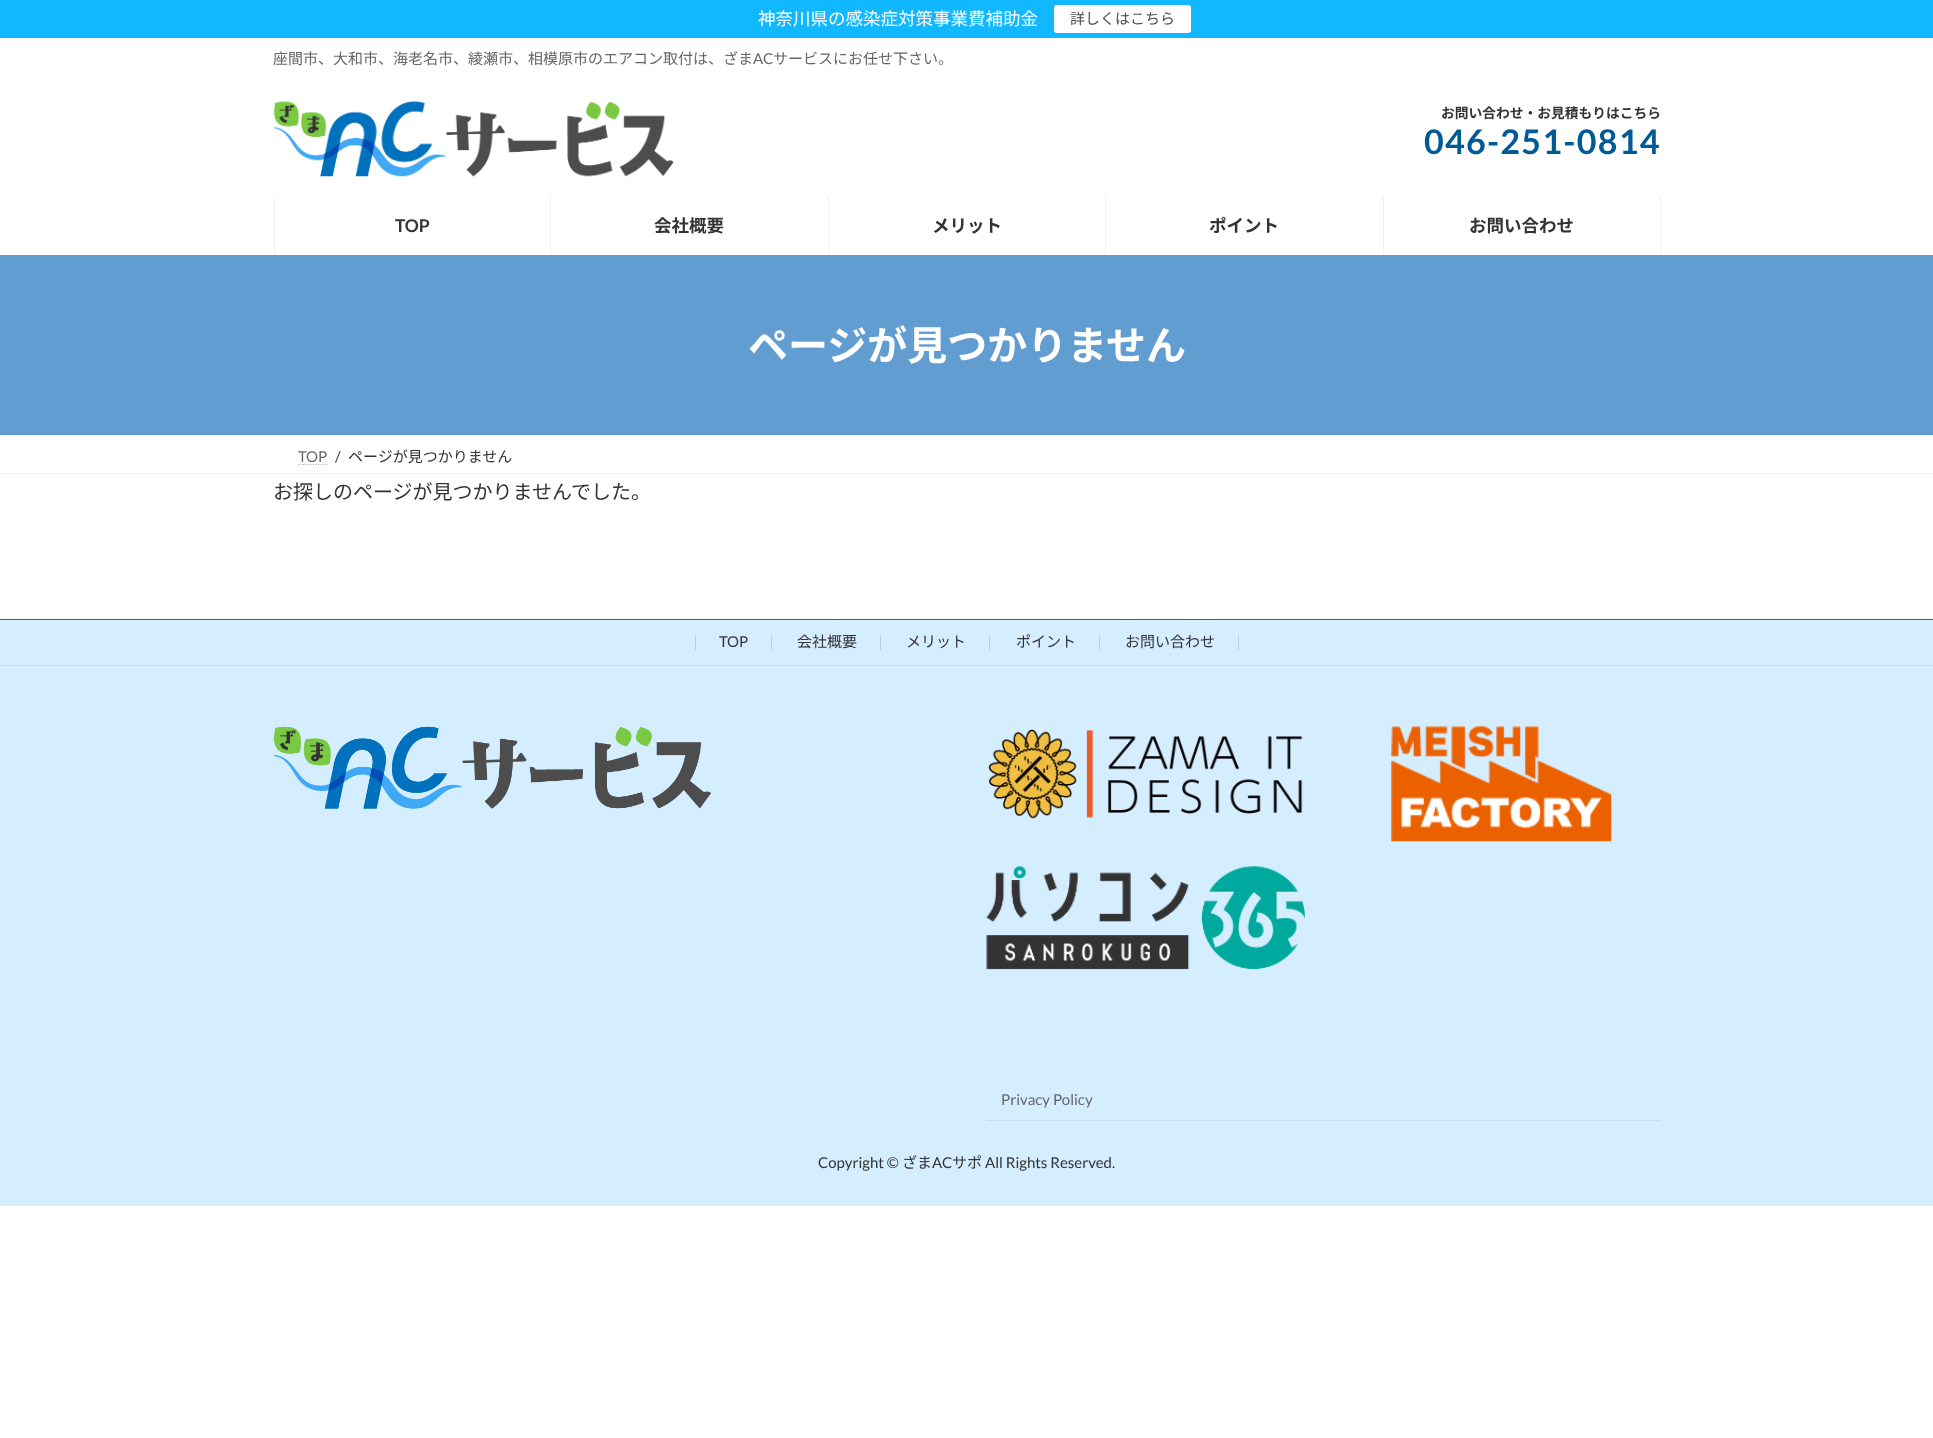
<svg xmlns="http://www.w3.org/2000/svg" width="1933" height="1438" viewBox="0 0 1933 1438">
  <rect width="100%" height="100%" fill="#ffffff"/>
  <rect x="0" y="0" width="1933" height="38" fill="#11b7ff"/>
  <text x="758" y="25" font-family="Noto Sans JP" font-size="17.5" fill="#ffffff">神奈川県の感染症対策事業費補助金</text>
  <rect x="1054.5" y="5.5" width="136" height="27" rx="2" fill="#ffffff" stroke="#ffffff"/>
  <text x="1070" y="24" font-family="Noto Sans JP" font-size="15" fill="#4c4c4c">詳しくはこちら</text>
  <text x="273" y="64" font-family="Noto Sans JP" font-size="15" fill="#666666">座間市、大和市、海老名市、綾瀬市、相模原市のエアコン取付は、ざま</text>
  <text x="753" y="64" font-family="Lato" font-size="15" fill="#666666">AC</text>
  <text x="773" y="64" font-family="Noto Sans JP" font-size="15" fill="#666666">サービスにお任せ下さい。</text>
  <image x="273" y="101" width="401" height="76" href="img1.png"/>
  <text x="1441" y="118" font-family="Noto Sans JP" font-size="13.75" font-weight="bold" fill="#333333">お問い合わせ・お見積もりはこちら</text>
  <text x="1424" y="154" font-family="Lato" font-size="34" font-weight="bold" letter-spacing="1.25" fill="#005a96">046-251-0814</text>
  <rect x="550" y="196" width="1" height="59" fill="#f0f0f0"/>
  <rect x="274" y="196" width="1" height="59" fill="#f0f0f0"/>
  <text x="395" y="232" font-family="Lato" font-size="17.5" font-weight="bold" fill="#333333">TOP</text>
  <rect x="828" y="196" width="1" height="59" fill="#f0f0f0"/>
  <text x="654" y="232" font-family="Noto Sans JP" font-size="17.5" font-weight="bold" fill="#333333">会社概要</text>
  <rect x="1105" y="196" width="1" height="59" fill="#f0f0f0"/>
  <text x="932" y="232" font-family="Noto Sans JP" font-size="17.5" font-weight="bold" fill="#333333">メリット</text>
  <rect x="1383" y="196" width="1" height="59" fill="#f0f0f0"/>
  <text x="1209" y="232" font-family="Noto Sans JP" font-size="17.5" font-weight="bold" fill="#333333">ポイント</text>
  <rect x="1660" y="196" width="1" height="59" fill="#f0f0f0"/>
  <text x="1469" y="232" font-family="Noto Sans JP" font-size="17.5" font-weight="bold" fill="#333333">お問い合わせ</text>
  <rect x="0" y="255" width="1933" height="180" fill="#629dd2"/>
  <text x="748" y="360" font-family="Noto Sans JP" font-size="40" font-weight="bold" fill="#ffffff">ページが見つかりません</text>
  <rect x="0" y="435" width="1933" height="1" fill="#f0f0f0"/>
  <rect x="0" y="473" width="1933" height="1" fill="#f0f0f0"/>
  <text x="298" y="462" font-family="Lato" font-size="15" fill="#666666">TOP</text>
  <path d="M298 464.5H327" fill="none" stroke="#b3b3b3" stroke-width="1.2" stroke-dasharray="1.25 1.25"/>
  <text x="335" y="462" font-family="Lato" font-size="15" fill="#333333">/</text>
  <text x="348" y="462" font-family="Noto Sans JP" font-size="15" fill="#333333">ページが見つかりません</text>
  <text x="273" y="499" font-family="Noto Sans JP" font-size="20" fill="#333333">お探しのページが見つかりませんでした。</text>
  <rect x="0" y="620" width="1933" height="586" fill="#d4edff"/>
  <rect x="0" y="619" width="1933" height="1" fill="#0071bc"/>
  <rect x="0" y="665" width="1933" height="1" fill="#c7dff0"/>
  <rect x="771" y="635" width="1" height="15" fill="#bbd1e0"/>
  <rect x="695" y="635" width="1" height="15" fill="#bbd1e0"/>
  <text x="719" y="647" font-family="Lato" font-size="15" fill="#333333">TOP</text>
  <rect x="880" y="635" width="1" height="15" fill="#bbd1e0"/>
  <text x="797" y="647" font-family="Noto Sans JP" font-size="15" fill="#333333">会社概要</text>
  <rect x="989" y="635" width="1" height="15" fill="#bbd1e0"/>
  <text x="906" y="647" font-family="Noto Sans JP" font-size="15" fill="#333333">メリット</text>
  <rect x="1099" y="635" width="1" height="15" fill="#bbd1e0"/>
  <text x="1016" y="647" font-family="Noto Sans JP" font-size="15" fill="#333333">ポイント</text>
  <rect x="1238" y="635" width="1" height="15" fill="#bbd1e0"/>
  <text x="1125" y="647" font-family="Noto Sans JP" font-size="15" fill="#333333">お問い合わせ</text>
  <image x="273" y="726" width="438" height="83" href="img2.png"/>
  <image x="988" y="729" width="315" height="90" href="img3.png"/>
  <image x="986" y="866" width="319" height="104" href="img4.png"/>
  <image x="1391" y="726" width="221" height="116" href="img5.png"/>
  <rect x="986" y="1120" width="675" height="1" fill="#c7dff0"/>
  <text x="1001" y="1105" font-family="Lato" font-size="15" fill="#666666">Privacy Policy</text>
  <text x="818" y="1168" font-family="Lato" font-size="15" fill="#333333">Copyright ©</text>
  <text x="902" y="1168" font-family="Noto Sans JP" font-size="15" fill="#333333">ざま</text>
  <text x="932" y="1168" font-family="Lato" font-size="15" fill="#333333">AC</text>
  <text x="952" y="1168" font-family="Noto Sans JP" font-size="15" fill="#333333">サポ</text>
  <text x="985" y="1168" font-family="Lato" font-size="15" fill="#333333">All Rights Reserved.</text>
</svg>
